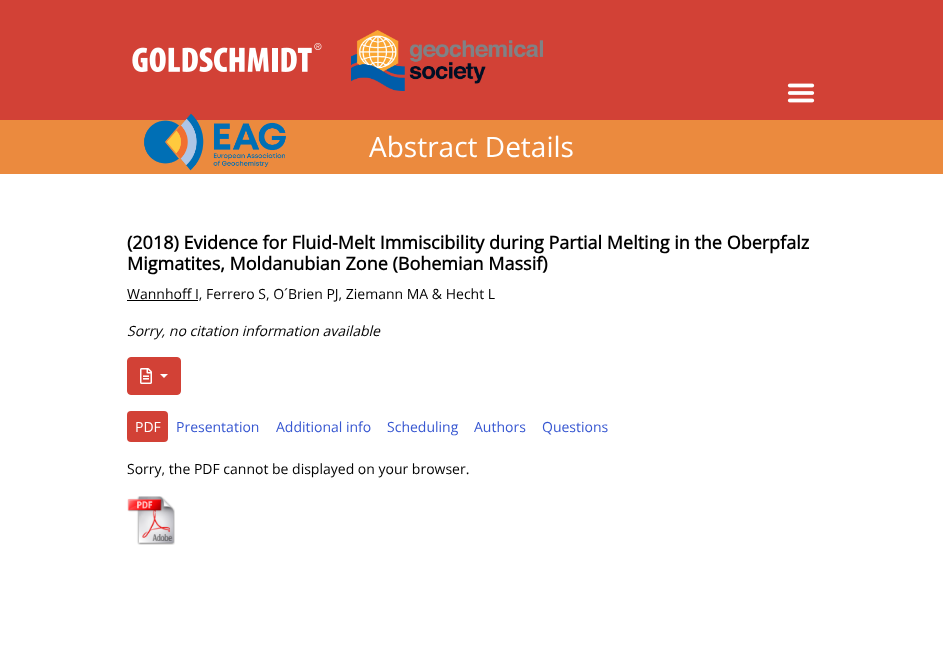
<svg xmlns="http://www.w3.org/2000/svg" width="943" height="655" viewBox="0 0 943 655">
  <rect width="100%" height="100%" fill="#ffffff"/>
  <rect x="0" y="0" width="943" height="120" fill="#d24136"/>
  <image x="132" y="43" width="190" height="29" href="img1.png"/>
  <image x="351" y="30" width="192" height="61" href="img2.png"/>
  <rect x="0" y="120" width="943" height="54" fill="#eb8a3e"/>
  <image x="144" y="113" width="142" height="58" href="img3.png"/>
  <image x="787" y="83" width="28" height="20" href="img4.png"/>
  <text x="369" y="157" font-family="Open Sans" font-size="28" fill="#ffffff">Abstract Details</text>
  <text x="127" y="249" font-family="Open Sans" font-size="18" font-weight="bold" fill="#000000">(2018) Evidence for Fluid-Melt Immiscibility during Partial Melting in the Oberpfalz</text>
  <text x="127" y="270" font-family="Open Sans" font-size="18" font-weight="bold" fill="#000000">Migmatites, Moldanubian Zone (Bohemian Massif)</text>
  <rect x="127" y="300" width="71" height="1" fill="#000000"/>
  <text x="127" y="299" font-family="Open Sans" font-size="14" fill="#000000">Wannhoff I, Ferrero S, O´Brien PJ, Ziemann MA &amp; Hecht L</text>
  <text x="127" y="336" font-family="Open Sans" font-size="14" font-style="italic" fill="#000000">Sorry, no citation information available</text>
  <rect x="127.5" y="357.5" width="53" height="37" rx="3.5" fill="#d24136" stroke="#d24136"/>
  <image x="140" y="368" width="12" height="16" href="img5.png"/>
  <path d="M160 374H168L164 378Z" fill="#ffffff"/>
  <rect x="127" y="411" width="41" height="31" rx="4" fill="#d24136"/>
  <text x="135" y="432" font-family="Open Sans" font-size="14" fill="#ffffff">PDF</text>
  <text x="176" y="432" font-family="Open Sans" font-size="14" fill="#3757d1">Presentation</text>
  <text x="276" y="432" font-family="Open Sans" font-size="14" fill="#3757d1">Additional info</text>
  <text x="387" y="432" font-family="Open Sans" font-size="14" fill="#3757d1">Scheduling</text>
  <text x="474" y="432" font-family="Open Sans" font-size="14" fill="#3757d1">Authors</text>
  <text x="542" y="432" font-family="Open Sans" font-size="14" fill="#3757d1">Questions</text>
  <text x="127" y="474" font-family="Open Sans" font-size="14" fill="#000000">Sorry, the PDF cannot be displayed on your browser.</text>
  <image x="127" y="496" width="48" height="49" href="img6.png"/>
</svg>
